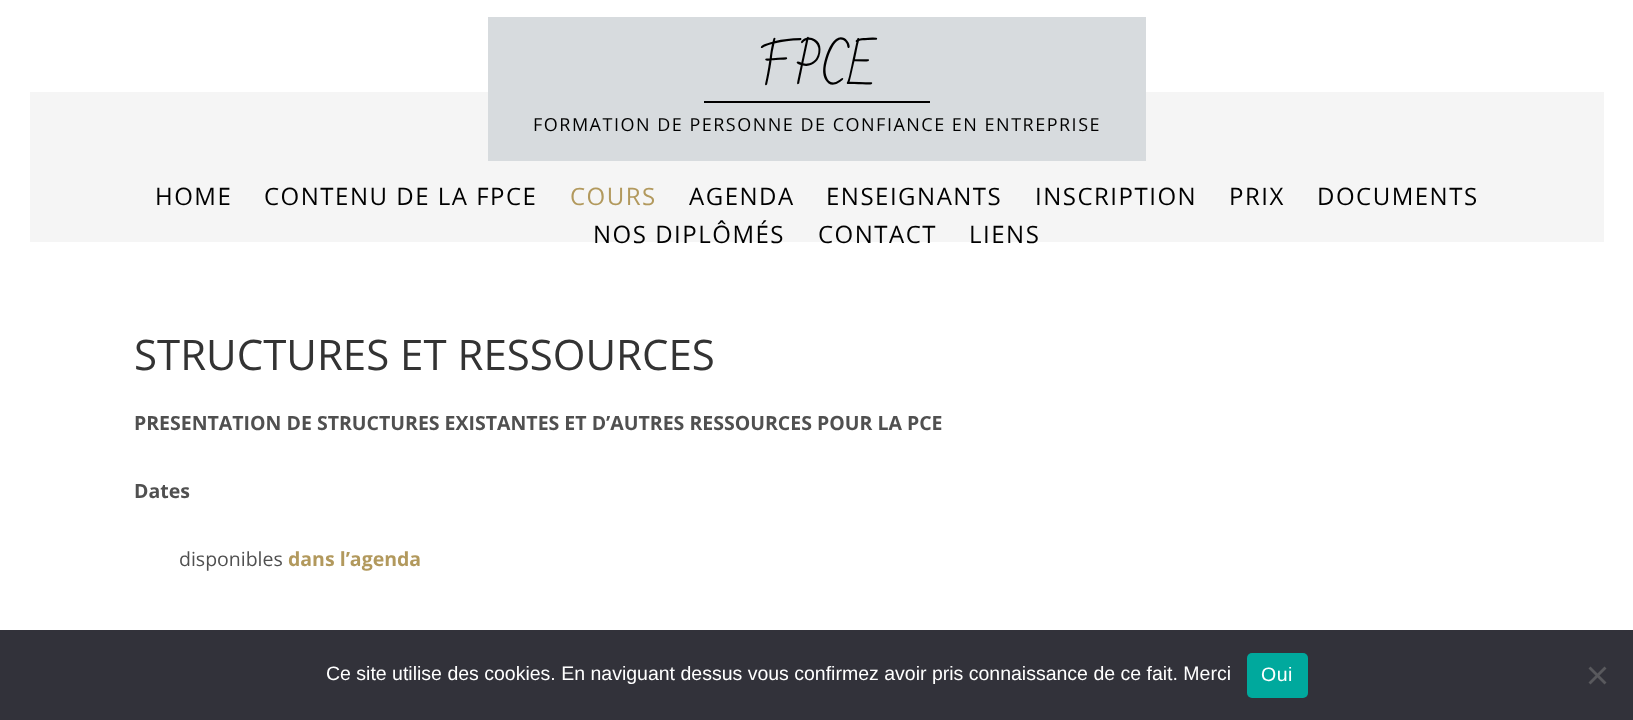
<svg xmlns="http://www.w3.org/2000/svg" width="1633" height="720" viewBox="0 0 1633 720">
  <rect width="100%" height="100%" fill="#ffffff"/>
  <rect x="30" y="92" width="1574" height="150" fill="#f5f5f5"/>
  <rect x="488" y="17" width="658" height="144" fill="#d7dbde"/>
  <text x="758" y="84" font-family="Bad Script" font-size="48" fill="#000000">FPCE</text>
  <rect x="704" y="101" width="226" height="2" fill="#000000"/>
  <text x="533" y="131" font-family="Open Sans" font-size="18" letter-spacing="1.5" fill="#000000">FORMATION DE PERSONNE DE CONFIANCE EN ENTREPRISE</text>
  <text x="155" y="205" font-family="Open Sans" font-size="24" letter-spacing="1.5" fill="#000000">HOME</text>
  <text x="264" y="205" font-family="Open Sans" font-size="24" letter-spacing="1.5" fill="#000000">CONTENU DE LA FPCE</text>
  <text x="570" y="205" font-family="Open Sans" font-size="24" letter-spacing="1.5" fill="#b2995d">COURS</text>
  <text x="689" y="205" font-family="Open Sans" font-size="24" letter-spacing="1.5" fill="#000000">AGENDA</text>
  <text x="826" y="205" font-family="Open Sans" font-size="24" letter-spacing="1.5" fill="#000000">ENSEIGNANTS</text>
  <text x="1035" y="205" font-family="Open Sans" font-size="24" letter-spacing="1.5" fill="#000000">INSCRIPTION</text>
  <text x="1229" y="205" font-family="Open Sans" font-size="24" letter-spacing="1.5" fill="#000000">PRIX</text>
  <text x="1317" y="205" font-family="Open Sans" font-size="24" letter-spacing="1.5" fill="#000000">DOCUMENTS</text>
  <text x="593" y="243" font-family="Open Sans" font-size="24" letter-spacing="1.5" fill="#000000">NOS DIPLÔMÉS</text>
  <text x="818" y="243" font-family="Open Sans" font-size="24" letter-spacing="1.5" fill="#000000">CONTACT</text>
  <text x="969" y="243" font-family="Open Sans" font-size="24" letter-spacing="1.5" fill="#000000">LIENS</text>
  <text x="134" y="370" font-family="Open Sans" font-size="42" fill="#333333">STRUCTURES ET RESSOURCES</text>
  <text x="134" y="430" font-family="Open Sans" font-size="19.5" font-weight="bold" fill="#505050">PRESENTATION DE STRUCTURES EXISTANTES ET D’AUTRES RESSOURCES POUR LA PCE</text>
  <text x="134" y="498" font-family="Open Sans" font-size="19.5" font-weight="bold" fill="#505050">Dates</text>
  <text x="179" y="566" font-family="Open Sans" font-size="19.5" fill="#505050">disponibles</text>
  <text x="288" y="566" font-family="Open Sans" font-size="19.5" font-weight="bold" fill="#b2995d">dans l’agenda</text>
  <rect x="0" y="630" width="1633" height="90" fill="#32323a"/>
  <text x="326" y="680" font-family="Liberation Sans" font-size="19.5" fill="#ffffff">Ce site utilise des cookies. En naviguant dessus vous confirmez avoir pris connaissance de ce fait. Merci</text>
  <rect x="1247" y="653" width="61" height="45" rx="5" fill="#00a99d"/>
  <text x="1261" y="681" font-family="Liberation Sans" font-size="19.5" letter-spacing="0.5" fill="#ffffff">Oui</text>
  <path d="M1604.5 666.5L1606.5 668.5L1590.5 684.5L1588.5 682.5Z" fill="#59595d"/>
  <path d="M1588.5 668.5L1590.5 666.5L1606.5 682.5L1604.5 684.5Z" fill="#59595d"/>
</svg>
